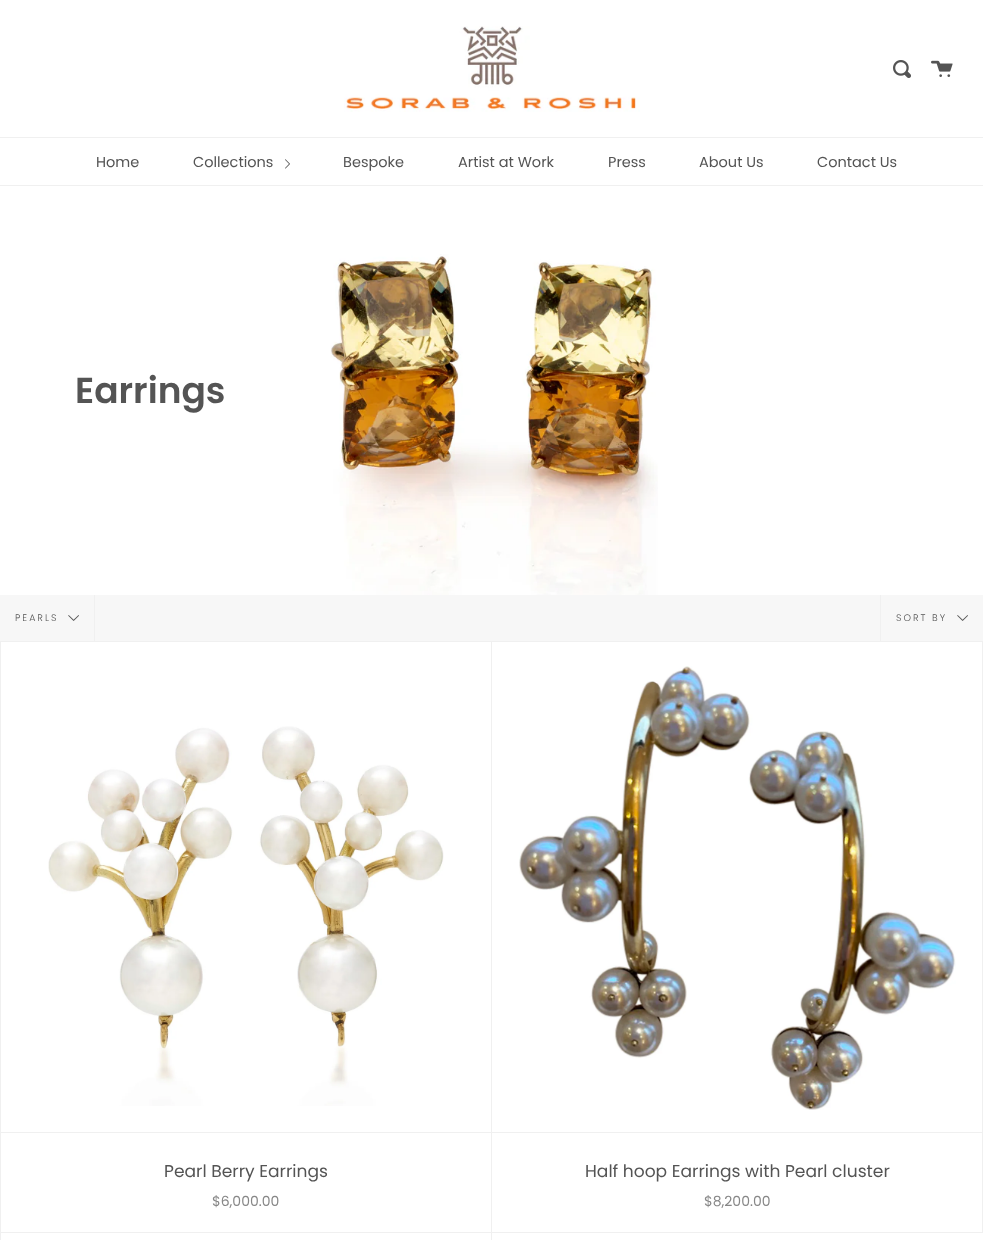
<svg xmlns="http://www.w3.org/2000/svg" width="983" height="1240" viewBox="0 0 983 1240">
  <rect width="100%" height="100%" fill="#ffffff"/>
  <image x="344" y="26" width="296" height="86" href="img1.png"/>
  <image x="893" y="60" width="18" height="18" href="img2.png"/>
  <image x="931" y="60" width="22" height="17" href="img3.png"/>
  <rect x="0" y="137" width="983" height="1" fill="#f0f0f0"/>
  <rect x="0" y="185" width="983" height="1" fill="#f0f0f0"/>
  <text x="96" y="167" font-family="Poppins" font-size="14.5" fill="#545454">Home</text>
  <text x="193" y="167" font-family="Poppins" font-size="14.5" fill="#545454">Collections</text>
  <image x="285" y="159" width="5" height="10" href="img4.png"/>
  <text x="343" y="167" font-family="Poppins" font-size="14.5" fill="#545454">Bespoke</text>
  <text x="458" y="167" font-family="Poppins" font-size="14.5" fill="#545454">Artist at Work</text>
  <text x="608" y="167" font-family="Poppins" font-size="14.5" fill="#545454">Press</text>
  <text x="699" y="167" font-family="Poppins" font-size="14.5" fill="#545454">About Us</text>
  <text x="817" y="167" font-family="Poppins" font-size="14.5" fill="#545454">Contact Us</text>
  <text x="75" y="403" font-family="Poppins" font-size="36" font-weight="600" fill="#545454">Earrings</text>
  <image x="330" y="254" width="328" height="341" href="img5.png"/>
  <rect x="0" y="595" width="983" height="46" fill="#f7f7f7"/>
  <rect x="94" y="595" width="1" height="46" fill="#f0f0f0"/>
  <text x="15" y="621" font-family="Poppins" font-size="9.5" font-weight="300" letter-spacing="2" fill="#545454">PEARLS</text>
  <image x="68" y="615" width="11" height="6" href="img6.png"/>
  <rect x="880" y="595" width="1" height="46" fill="#f0f0f0"/>
  <text x="896" y="621" font-family="Poppins" font-size="9.5" font-weight="300" letter-spacing="2" fill="#545454">SORT BY</text>
  <image x="957" y="615" width="11" height="6" href="img6.png"/>
  <rect x="0" y="641" width="1" height="599" fill="#f0f0f0"/>
  <rect x="1" y="641" width="982" height="1" fill="#f0f0f0"/>
  <rect x="491" y="641" width="1" height="592" fill="#f0f0f0"/>
  <rect x="1" y="1132" width="490" height="1" fill="#f0f0f0"/>
  <image x="48" y="726" width="396" height="380" href="img7.png"/>
  <text x="164" y="1177" font-family="Poppins" font-size="17.1" fill="#545454">Pearl Berry Earrings</text>
  <text x="212" y="1206" font-family="Poppins" font-size="14" fill="#878787">$6,000.00</text>
  <rect x="982" y="641" width="1" height="592" fill="#f0f0f0"/>
  <rect x="1" y="1232" width="982" height="1" fill="#f0f0f0"/>
  <rect x="492" y="1132" width="490" height="1" fill="#f0f0f0"/>
  <image x="519" y="666" width="437" height="444" href="img8.png"/>
  <text x="585" y="1177" font-family="Poppins" font-size="17.1" fill="#545454">Half hoop Earrings with Pearl cluster</text>
  <text x="704" y="1206" font-family="Poppins" font-size="14" fill="#878787">$8,200.00</text>
  <rect x="491" y="1232" width="1" height="8" fill="#f0f0f0"/>
</svg>
